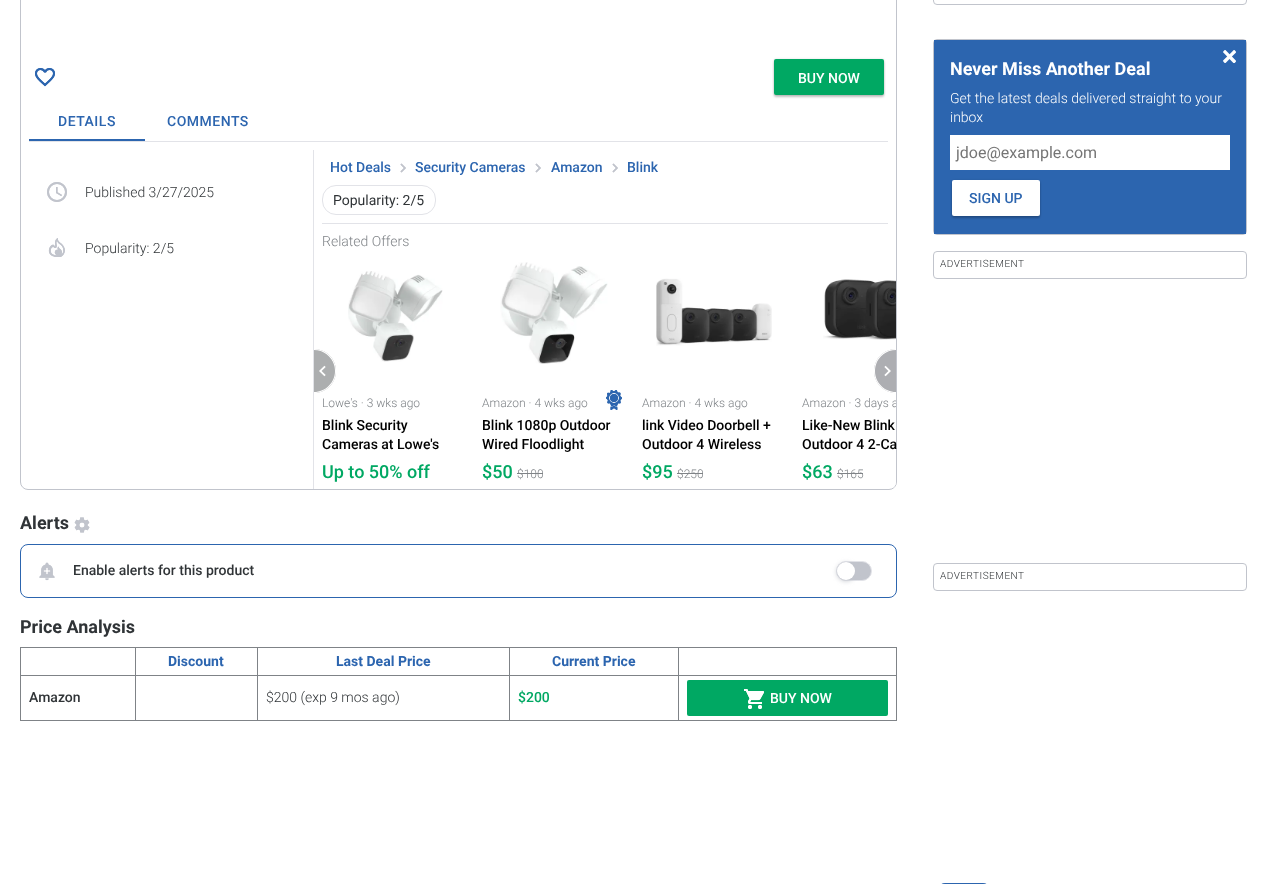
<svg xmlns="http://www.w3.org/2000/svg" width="1263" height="884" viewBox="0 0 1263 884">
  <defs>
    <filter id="blur1" x="-50%" y="-200%" width="200%" height="500%"><feGaussianBlur stdDeviation="1"/></filter>
    <clipPath id="clip1"><rect x="21" y="-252" width="875" height="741" rx="7"/></clipPath>
    <filter id="blur2" x="-50%" y="-200%" width="200%" height="500%"><feGaussianBlur stdDeviation="2.5"/></filter>
  </defs>
  <rect width="100%" height="100%" fill="#ffffff"/>
  <rect x="20.5" y="-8.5" width="876" height="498" rx="7.5" fill="none" stroke="#c1c4cc"/>
  <image x="35" y="68" width="20" height="19" href="img1.png"/>
  <image x="35" y="68" width="20" height="19" href="img2.png"/>
  <rect x="774" y="61" width="110" height="36" rx="2" fill="#000000" fill-opacity="0.24" filter="url(#blur1)"/>
  <rect x="774" y="59" width="110" height="36" rx="2" fill="#000000" fill-opacity="0.12" filter="url(#blur1)"/>
  <rect x="774" y="59" width="110" height="36" rx="2" fill="#00a863"/>
  <text x="798" y="83" font-family="Roboto" font-size="14" font-weight="500" fill="#ffffff">BUY NOW</text>
  <rect x="29" y="141" width="859" height="1" fill="#e2e3e8"/>
  <rect x="29" y="139" width="116" height="2" fill="#2c65af"/>
  <text x="58" y="126" font-family="Roboto" font-size="14" font-weight="500" letter-spacing="0.5" fill="#2c65af">DETAILS</text>
  <text x="167" y="126" font-family="Roboto" font-size="14" font-weight="500" letter-spacing="0.5" fill="#2c65af">COMMENTS</text>
  <image x="47" y="182" width="20" height="20" href="img3.png"/>
  <image x="47" y="182" width="20" height="20" href="img4.png"/>
  <text x="85" y="197" font-family="Roboto" font-size="14" font-weight="300" fill="#303437">Published 3/27/2025</text>
  <image x="48" y="238" width="17" height="19" href="img5.png"/>
  <image x="48" y="238" width="17" height="19" href="img6.png"/>
  <text x="85" y="253" font-family="Roboto" font-size="14" font-weight="300" fill="#303437">Popularity: 2/5</text>
  <rect x="313" y="150" width="1" height="339" fill="#e2e3e8"/>
  <text x="330" y="172" font-family="Roboto" font-size="14" font-weight="500" fill="#2c65af">Hot Deals</text>
  <image x="400" y="163" width="6" height="10" href="img7.png"/>
  <image x="400" y="163" width="6" height="10" href="img8.png"/>
  <text x="415" y="172" font-family="Roboto" font-size="14" font-weight="500" fill="#2c65af">Security Cameras</text>
  <image x="535" y="163" width="6" height="10" href="img7.png"/>
  <image x="535" y="163" width="6" height="10" href="img8.png"/>
  <text x="551" y="172" font-family="Roboto" font-size="14" font-weight="500" fill="#2c65af">Amazon</text>
  <image x="612" y="163" width="6" height="10" href="img7.png"/>
  <image x="612" y="163" width="6" height="10" href="img8.png"/>
  <text x="627" y="172" font-family="Roboto" font-size="14" font-weight="500" fill="#2c65af">Blink</text>
  <rect x="322" y="223" width="566" height="1" fill="#e2e3e8"/>
  <rect x="322.5" y="185.5" width="113" height="29" rx="13.5" fill="none" stroke="#e2e3e8"/>
  <text x="333" y="205" font-family="Roboto" font-size="14" fill="#303437">Popularity: 2/5</text>
  <text x="322" y="246" font-family="Roboto" font-size="14" font-weight="300" fill="#7f8387">Related Offers</text>
  <image x="314" y="349" width="22" height="44" href="img9.png"/>
  <g clip-path="url(#clip1)">
    <path d="M802 250H896V488H802C797.5 488 794 484.5 794 480V258C794 253.5 797.5 250 802 250Z" fill="#ffffff"/>
  </g>
  <image x="874" y="349" width="22" height="44" href="img10.png"/>
  <image x="348" y="271" width="95" height="91" href="img11.png"/>
  <text x="322" y="407" font-family="Roboto" font-size="12" font-weight="300" fill="#7f8387">Lowe's · 3 wks ago</text>
  <text x="322" y="430" font-family="Roboto" font-size="14" font-weight="500" fill="#000000">Blink Security</text>
  <text x="322" y="449" font-family="Roboto" font-size="14" font-weight="500" fill="#000000">Cameras at Lowe's</text>
  <text x="322" y="478" font-family="Roboto" font-size="18" font-weight="500" fill="#00a863">Up to 50% off</text>
  <image x="500" y="262" width="108" height="102" href="img12.png"/>
  <text x="482" y="407" font-family="Roboto" font-size="12" font-weight="300" fill="#7f8387">Amazon · 4 wks ago</text>
  <image x="606" y="390" width="16" height="20" href="img13.png"/>
  <image x="606" y="390" width="16" height="20" href="img14.png"/>
  <text x="482" y="430" font-family="Roboto" font-size="14" font-weight="500" fill="#000000">Blink 1080p Outdoor</text>
  <text x="482" y="449" font-family="Roboto" font-size="14" font-weight="500" fill="#000000">Wired Floodlight</text>
  <text x="482" y="478" font-family="Roboto" font-size="18" font-weight="500" fill="#00a863">$50</text>
  <text x="517" y="478" font-family="Roboto" font-size="12" font-weight="300" fill="#7f8387">$100</text>
  <rect x="517" y="473" width="26" height="1" fill="#7f8387"/>
  <image x="656" y="278" width="116" height="68" href="img15.png"/>
  <text x="642" y="407" font-family="Roboto" font-size="12" font-weight="300" fill="#7f8387">Amazon · 4 wks ago</text>
  <text x="642" y="430" font-family="Roboto" font-size="14" font-weight="500" fill="#000000">link Video Doorbell +</text>
  <text x="642" y="449" font-family="Roboto" font-size="14" font-weight="500" fill="#000000">Outdoor 4 Wireless</text>
  <text x="642" y="478" font-family="Roboto" font-size="18" font-weight="500" fill="#00a863">$95</text>
  <text x="677" y="478" font-family="Roboto" font-size="12" font-weight="300" fill="#7f8387">$250</text>
  <rect x="677" y="473" width="26" height="1" fill="#7f8387"/>
  <image x="823" y="279" width="73" height="61" href="img16.png"/>
  <g clip-path="url(#clip1)">
    <text x="802" y="407" font-family="Roboto" font-size="12" font-weight="300" fill="#7f8387">Amazon · 3 days a</text>
  </g>
  <text x="802" y="430" font-family="Roboto" font-size="14" font-weight="500" fill="#000000">Like-New Blink</text>
  <text x="802" y="449" font-family="Roboto" font-size="14" font-weight="500" fill="#000000">Outdoor 4 2-Ca</text>
  <text x="802" y="478" font-family="Roboto" font-size="18" font-weight="500" fill="#00a863">$63</text>
  <text x="837" y="478" font-family="Roboto" font-size="12" font-weight="300" fill="#7f8387">$165</text>
  <rect x="837" y="473" width="26" height="1" fill="#7f8387"/>
  <text x="20" y="529" font-family="Roboto" font-size="18" font-weight="bold" fill="#303437">Alerts</text>
  <image x="74" y="517" width="16" height="16" href="img17.png"/>
  <image x="74" y="517" width="16" height="16" href="img18.png"/>
  <rect x="20.5" y="544.5" width="876" height="53" rx="7.5" fill="none" stroke="#2c65af"/>
  <image x="39" y="562" width="16" height="19" href="img19.png"/>
  <image x="39" y="562" width="16" height="18" href="img20.png"/>
  <text x="73" y="575" font-family="Roboto" font-size="14" font-weight="500" fill="#303437">Enable alerts for this product</text>
  <rect x="836.5" y="561.5" width="35" height="19" rx="9.5" fill="#c1c4cc" stroke="#e2e3e8"/>
  <rect x="837" y="563" width="18" height="18" rx="9" fill="#c1c4cc" filter="url(#blur2)"/>
  <circle cx="846" cy="571" r="9" fill="#ffffff"/>
  <text x="20" y="633" font-family="Roboto" font-size="18" font-weight="bold" fill="#303437">Price Analysis</text>
  <rect x="678" y="647" width="219" height="1" fill="#7f8387"/>
  <rect x="678" y="675" width="219" height="1" fill="#7f8387"/>
  <rect x="896" y="675" width="1" height="46" fill="#7f8387"/>
  <rect x="678" y="720" width="219" height="1" fill="#7f8387"/>
  <rect x="678" y="675" width="1" height="46" fill="#7f8387"/>
  <rect x="509" y="675" width="170" height="1" fill="#7f8387"/>
  <rect x="678" y="647" width="1" height="29" fill="#7f8387"/>
  <rect x="509" y="647" width="170" height="1" fill="#7f8387"/>
  <rect x="509" y="720" width="170" height="1" fill="#7f8387"/>
  <rect x="509" y="675" width="1" height="46" fill="#7f8387"/>
  <rect x="257" y="675" width="253" height="1" fill="#7f8387"/>
  <rect x="509" y="647" width="1" height="29" fill="#7f8387"/>
  <rect x="257" y="647" width="253" height="1" fill="#7f8387"/>
  <rect x="257" y="720" width="253" height="1" fill="#7f8387"/>
  <rect x="257" y="675" width="1" height="46" fill="#7f8387"/>
  <rect x="135" y="675" width="123" height="1" fill="#7f8387"/>
  <rect x="257" y="647" width="1" height="29" fill="#7f8387"/>
  <rect x="135" y="647" width="123" height="1" fill="#7f8387"/>
  <rect x="135" y="720" width="123" height="1" fill="#7f8387"/>
  <rect x="135" y="675" width="1" height="46" fill="#7f8387"/>
  <rect x="20" y="675" width="116" height="1" fill="#7f8387"/>
  <rect x="135" y="647" width="1" height="29" fill="#7f8387"/>
  <rect x="20" y="647" width="116" height="1" fill="#7f8387"/>
  <rect x="20" y="720" width="116" height="1" fill="#7f8387"/>
  <rect x="20" y="675" width="1" height="46" fill="#7f8387"/>
  <rect x="20" y="647" width="1" height="29" fill="#7f8387"/>
  <text x="168" y="666" font-family="Roboto" font-size="14" font-weight="bold" fill="#2c65af">Discount</text>
  <text x="336" y="666" font-family="Roboto" font-size="14" font-weight="bold" fill="#2c65af">Last Deal Price</text>
  <text x="552" y="666" font-family="Roboto" font-size="14" font-weight="bold" fill="#2c65af">Current Price</text>
  <rect x="896" y="647" width="1" height="29" fill="#7f8387"/>
  <text x="29" y="702" font-family="Roboto" font-size="14" font-weight="500" fill="#303437">Amazon</text>
  <text x="266" y="702" font-family="Roboto" font-size="14" font-weight="300" fill="#303437">$200 (exp 9 mos ago)</text>
  <text x="518" y="702" font-family="Roboto" font-size="14" font-weight="500" fill="#00a863">$200</text>
  <rect x="687" y="680" width="201" height="36" rx="2" fill="#00a863"/>
  <image x="744" y="689" width="20" height="20" href="img21.png"/>
  <image x="746" y="689" width="18" height="20" href="img22.png"/>
  <text x="770" y="703" font-family="Roboto" font-size="14" font-weight="500" fill="#ffffff">BUY NOW</text>
  <rect x="933.5" y="-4.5" width="313" height="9" rx="3.5" fill="none" stroke="#c1c4cc"/>
  <rect x="933.5" y="39.5" width="313" height="195" rx="3.5" fill="none" stroke="#c1c4cc"/>
  <rect x="934" y="40" width="312" height="194" fill="#2c65af"/>
  <image x="1223" y="50" width="13" height="13" href="img23.png"/>
  <text x="950" y="75" font-family="Roboto" font-size="18" font-weight="bold" fill="#ffffff">Never Miss Another Deal</text>
  <text x="950" y="103" font-family="Roboto" font-size="14" font-weight="300" fill="#ffffff">Get the latest deals delivered straight to your</text>
  <text x="950" y="122" font-family="Roboto" font-size="14" font-weight="300" fill="#ffffff">inbox</text>
  <rect x="950" y="135" width="280" height="35" fill="#ffffff"/>
  <text x="956" y="158" font-family="Roboto" font-size="16" fill="#757575">jdoe@example.com</text>
  <rect x="952" y="182" width="88" height="36" rx="2" fill="#000000" fill-opacity="0.24" filter="url(#blur1)"/>
  <rect x="952" y="180" width="88" height="36" rx="2" fill="#000000" fill-opacity="0.12" filter="url(#blur1)"/>
  <rect x="952" y="180" width="88" height="36" rx="2" fill="#ffffff"/>
  <text x="969" y="203" font-family="Roboto" font-size="14" font-weight="500" fill="#2c65af">SIGN UP</text>
  <rect x="933.5" y="251.5" width="313" height="27" rx="3.5" fill="none" stroke="#c1c4cc"/>
  <text x="940" y="267" font-family="Roboto" font-size="10" font-weight="300" letter-spacing="0.5" fill="#303437">ADVERTISEMENT</text>
  <rect x="933.5" y="563.5" width="313" height="27" rx="3.5" fill="none" stroke="#c1c4cc"/>
  <text x="940" y="579" font-family="Roboto" font-size="10" font-weight="300" letter-spacing="0.5" fill="#303437">ADVERTISEMENT</text>
  <rect x="941" y="883" width="46" height="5" rx="4" fill="#2c65af"/>
</svg>
